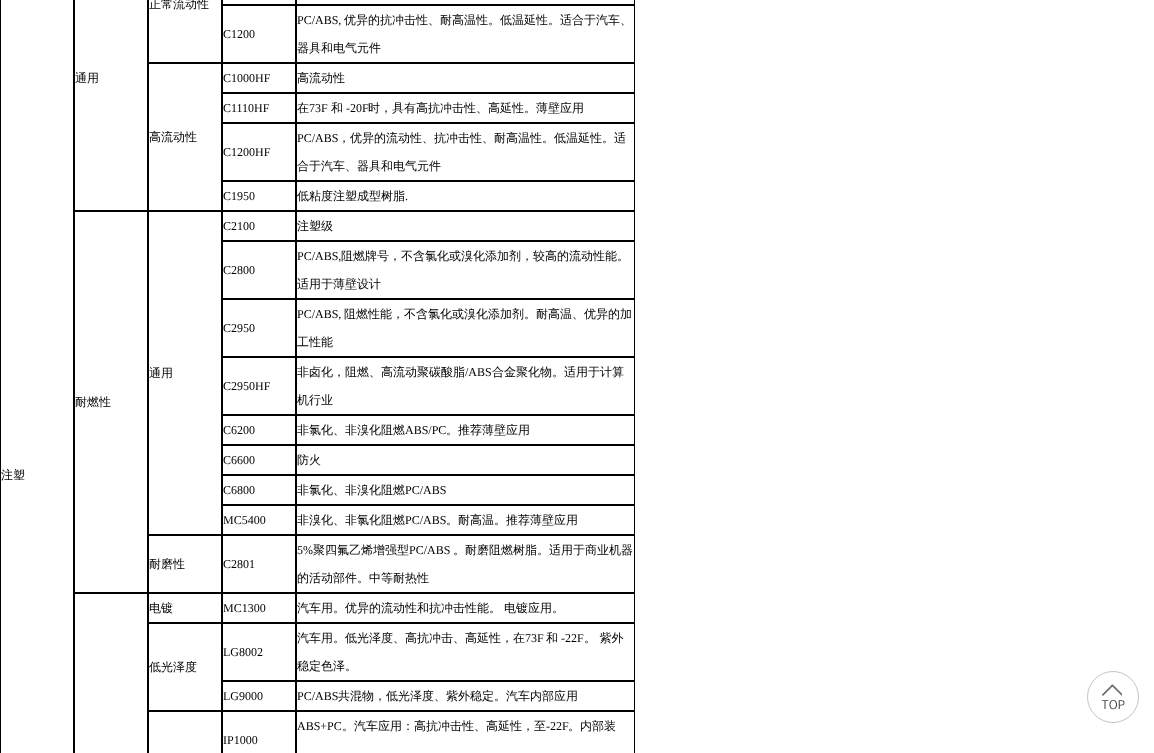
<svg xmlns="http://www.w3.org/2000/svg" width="1154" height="753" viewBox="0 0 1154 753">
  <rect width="100%" height="100%" fill="#ffffff"/>
  <rect x="148.5" y="-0.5" width="73" height="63" fill="none" stroke="#000000"/>
  <text x="149" y="8" font-family="WenQuanYi Zen Hei" font-size="12" font-weight="500" fill="#000000">正常流动性</text>
  <rect x="74.5" y="-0.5" width="73" height="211" fill="none" stroke="#000000"/>
  <text x="75" y="82" font-family="WenQuanYi Zen Hei" font-size="12" font-weight="500" fill="#000000">通用</text>
  <rect x="0.5" y="-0.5" width="73" height="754" fill="none" stroke="#000000"/>
  <text x="1" y="479" font-family="WenQuanYi Zen Hei" font-size="12" font-weight="500" fill="#000000">注塑</text>
  <rect x="222.5" y="-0.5" width="73" height="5" fill="none" stroke="#000000"/>
  <rect x="296.5" y="-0.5" width="338" height="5" fill="none" stroke="#000000"/>
  <rect x="222.5" y="5.5" width="73" height="57" fill="none" stroke="#000000"/>
  <text x="223" y="38" font-family="Liberation Serif" font-size="12" fill="#000000">C1200</text>
  <rect x="296.5" y="5.5" width="338" height="57" fill="none" stroke="#000000"/>
  <text x="297" y="24" font-family="Liberation Serif" font-size="12" fill="#000000">PC/ABS,</text>
  <text x="344" y="24" font-family="WenQuanYi Zen Hei" font-size="12" font-weight="500" fill="#000000">优异的抗冲击性、耐高温性。低温延性。适合于汽车、</text>
  <text x="297" y="52" font-family="WenQuanYi Zen Hei" font-size="12" font-weight="500" fill="#000000">器具和电气元件</text>
  <rect x="222.5" y="63.5" width="73" height="29" fill="none" stroke="#000000"/>
  <text x="223" y="82" font-family="Liberation Serif" font-size="12" fill="#000000">C1000HF</text>
  <rect x="296.5" y="63.5" width="338" height="29" fill="none" stroke="#000000"/>
  <text x="297" y="82" font-family="WenQuanYi Zen Hei" font-size="12" font-weight="500" fill="#000000">高流动性</text>
  <rect x="148.5" y="63.5" width="73" height="147" fill="none" stroke="#000000"/>
  <text x="149" y="141" font-family="WenQuanYi Zen Hei" font-size="12" font-weight="500" fill="#000000">高流动性</text>
  <rect x="222.5" y="93.5" width="73" height="29" fill="none" stroke="#000000"/>
  <text x="223" y="112" font-family="Liberation Serif" font-size="12" fill="#000000">C1110HF</text>
  <rect x="296.5" y="93.5" width="338" height="29" fill="none" stroke="#000000"/>
  <text x="297" y="112" font-family="WenQuanYi Zen Hei" font-size="12" font-weight="500" fill="#000000">在</text>
  <text x="309" y="112" font-family="Liberation Serif" font-size="12" fill="#000000">73F</text>
  <text x="331" y="112" font-family="WenQuanYi Zen Hei" font-size="12" font-weight="500" fill="#000000">和</text>
  <text x="346" y="112" font-family="Liberation Serif" font-size="12" fill="#000000">-20F</text>
  <text x="368" y="112" font-family="WenQuanYi Zen Hei" font-size="12" font-weight="500" fill="#000000">时，具有高抗冲击性、高延性。薄壁应用</text>
  <rect x="222.5" y="123.5" width="73" height="57" fill="none" stroke="#000000"/>
  <text x="223" y="156" font-family="Liberation Serif" font-size="12" fill="#000000">C1200HF</text>
  <rect x="296.5" y="123.5" width="338" height="57" fill="none" stroke="#000000"/>
  <text x="297" y="142" font-family="Liberation Serif" font-size="12" fill="#000000">PC/ABS</text>
  <text x="338" y="142" font-family="WenQuanYi Zen Hei" font-size="12" font-weight="500" fill="#000000">，优异的流动性、抗冲击性、耐高温性。低温延性。适</text>
  <text x="297" y="170" font-family="WenQuanYi Zen Hei" font-size="12" font-weight="500" fill="#000000">合于汽车、器具和电气元件</text>
  <rect x="222.5" y="181.5" width="73" height="29" fill="none" stroke="#000000"/>
  <text x="223" y="200" font-family="Liberation Serif" font-size="12" fill="#000000">C1950</text>
  <rect x="296.5" y="181.5" width="338" height="29" fill="none" stroke="#000000"/>
  <text x="297" y="200" font-family="WenQuanYi Zen Hei" font-size="12" font-weight="500" fill="#000000">低粘度注塑成型树脂</text>
  <text x="405" y="200" font-family="Liberation Serif" font-size="12" fill="#000000">.</text>
  <rect x="222.5" y="211.5" width="73" height="29" fill="none" stroke="#000000"/>
  <text x="223" y="230" font-family="Liberation Serif" font-size="12" fill="#000000">C2100</text>
  <rect x="296.5" y="211.5" width="338" height="29" fill="none" stroke="#000000"/>
  <text x="297" y="230" font-family="WenQuanYi Zen Hei" font-size="12" font-weight="500" fill="#000000">注塑级</text>
  <rect x="148.5" y="211.5" width="73" height="323" fill="none" stroke="#000000"/>
  <text x="149" y="377" font-family="WenQuanYi Zen Hei" font-size="12" font-weight="500" fill="#000000">通用</text>
  <rect x="74.5" y="211.5" width="73" height="381" fill="none" stroke="#000000"/>
  <text x="75" y="406" font-family="WenQuanYi Zen Hei" font-size="12" font-weight="500" fill="#000000">耐燃性</text>
  <rect x="222.5" y="241.5" width="73" height="57" fill="none" stroke="#000000"/>
  <text x="223" y="274" font-family="Liberation Serif" font-size="12" fill="#000000">C2800</text>
  <rect x="296.5" y="241.5" width="338" height="57" fill="none" stroke="#000000"/>
  <text x="297" y="260" font-family="Liberation Serif" font-size="12" fill="#000000">PC/ABS,</text>
  <text x="341" y="260" font-family="WenQuanYi Zen Hei" font-size="12" font-weight="500" fill="#000000">阻燃牌号，不含氯化或溴化添加剂，较高的流动性能。</text>
  <text x="297" y="288" font-family="WenQuanYi Zen Hei" font-size="12" font-weight="500" fill="#000000">适用于薄壁设计</text>
  <rect x="222.5" y="299.5" width="73" height="57" fill="none" stroke="#000000"/>
  <text x="223" y="332" font-family="Liberation Serif" font-size="12" fill="#000000">C2950</text>
  <rect x="296.5" y="299.5" width="338" height="57" fill="none" stroke="#000000"/>
  <text x="297" y="318" font-family="Liberation Serif" font-size="12" fill="#000000">PC/ABS,</text>
  <text x="344" y="318" font-family="WenQuanYi Zen Hei" font-size="12" font-weight="500" fill="#000000">阻燃性能，不含氯化或溴化添加剂。耐高温、优异的加</text>
  <text x="297" y="346" font-family="WenQuanYi Zen Hei" font-size="12" font-weight="500" fill="#000000">工性能</text>
  <rect x="222.5" y="357.5" width="73" height="57" fill="none" stroke="#000000"/>
  <text x="223" y="390" font-family="Liberation Serif" font-size="12" fill="#000000">C2950HF</text>
  <rect x="296.5" y="357.5" width="338" height="57" fill="none" stroke="#000000"/>
  <text x="297" y="376" font-family="WenQuanYi Zen Hei" font-size="12" font-weight="500" fill="#000000">非卤化，阻燃、高流动聚碳酸脂</text>
  <text x="465" y="376" font-family="Liberation Serif" font-size="12" fill="#000000">/ABS</text>
  <text x="492" y="376" font-family="WenQuanYi Zen Hei" font-size="12" font-weight="500" fill="#000000">合金聚化物。适用于计算</text>
  <text x="297" y="404" font-family="WenQuanYi Zen Hei" font-size="12" font-weight="500" fill="#000000">机行业</text>
  <rect x="222.5" y="415.5" width="73" height="29" fill="none" stroke="#000000"/>
  <text x="223" y="434" font-family="Liberation Serif" font-size="12" fill="#000000">C6200</text>
  <rect x="296.5" y="415.5" width="338" height="29" fill="none" stroke="#000000"/>
  <text x="297" y="434" font-family="WenQuanYi Zen Hei" font-size="12" font-weight="500" fill="#000000">非氯化、非溴化阻燃</text>
  <text x="405" y="434" font-family="Liberation Serif" font-size="12" fill="#000000">ABS/PC</text>
  <text x="446" y="434" font-family="WenQuanYi Zen Hei" font-size="12" font-weight="500" fill="#000000">。推荐薄壁应用</text>
  <rect x="222.5" y="445.5" width="73" height="29" fill="none" stroke="#000000"/>
  <text x="223" y="464" font-family="Liberation Serif" font-size="12" fill="#000000">C6600</text>
  <rect x="296.5" y="445.5" width="338" height="29" fill="none" stroke="#000000"/>
  <text x="297" y="464" font-family="WenQuanYi Zen Hei" font-size="12" font-weight="500" fill="#000000">防火</text>
  <rect x="222.5" y="475.5" width="73" height="29" fill="none" stroke="#000000"/>
  <text x="223" y="494" font-family="Liberation Serif" font-size="12" fill="#000000">C6800</text>
  <rect x="296.5" y="475.5" width="338" height="29" fill="none" stroke="#000000"/>
  <text x="297" y="494" font-family="WenQuanYi Zen Hei" font-size="12" font-weight="500" fill="#000000">非氯化、非溴化阻燃</text>
  <text x="405" y="494" font-family="Liberation Serif" font-size="12" fill="#000000">PC/ABS</text>
  <rect x="222.5" y="505.5" width="73" height="29" fill="none" stroke="#000000"/>
  <text x="223" y="524" font-family="Liberation Serif" font-size="12" fill="#000000">MC5400</text>
  <rect x="296.5" y="505.5" width="338" height="29" fill="none" stroke="#000000"/>
  <text x="297" y="524" font-family="WenQuanYi Zen Hei" font-size="12" font-weight="500" fill="#000000">非溴化、非氯化阻燃</text>
  <text x="405" y="524" font-family="Liberation Serif" font-size="12" fill="#000000">PC/ABS</text>
  <text x="446" y="524" font-family="WenQuanYi Zen Hei" font-size="12" font-weight="500" fill="#000000">。耐高温。推荐薄壁应用</text>
  <rect x="148.5" y="535.5" width="73" height="57" fill="none" stroke="#000000"/>
  <text x="149" y="568" font-family="WenQuanYi Zen Hei" font-size="12" font-weight="500" fill="#000000">耐磨性</text>
  <rect x="222.5" y="535.5" width="73" height="57" fill="none" stroke="#000000"/>
  <text x="223" y="568" font-family="Liberation Serif" font-size="12" fill="#000000">C2801</text>
  <rect x="296.5" y="535.5" width="338" height="57" fill="none" stroke="#000000"/>
  <text x="297" y="554" font-family="Liberation Serif" font-size="12" fill="#000000">5%</text>
  <text x="313" y="554" font-family="WenQuanYi Zen Hei" font-size="12" font-weight="500" fill="#000000">聚四氟乙烯增强型</text>
  <text x="409" y="554" font-family="Liberation Serif" font-size="12" fill="#000000">PC/ABS</text>
  <text x="453" y="554" font-family="WenQuanYi Zen Hei" font-size="12" font-weight="500" fill="#000000">。耐磨阻燃树脂。适用于商业机器</text>
  <text x="297" y="582" font-family="WenQuanYi Zen Hei" font-size="12" font-weight="500" fill="#000000">的活动部件。中等耐热性</text>
  <rect x="74.5" y="593.5" width="73" height="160" fill="none" stroke="#000000"/>
  <rect x="148.5" y="593.5" width="73" height="29" fill="none" stroke="#000000"/>
  <text x="149" y="612" font-family="WenQuanYi Zen Hei" font-size="12" font-weight="500" fill="#000000">电镀</text>
  <rect x="222.5" y="593.5" width="73" height="29" fill="none" stroke="#000000"/>
  <text x="223" y="612" font-family="Liberation Serif" font-size="12" fill="#000000">MC1300</text>
  <rect x="296.5" y="593.5" width="338" height="29" fill="none" stroke="#000000"/>
  <text x="297" y="612" font-family="WenQuanYi Zen Hei" font-size="12" font-weight="500" fill="#000000">汽车用。优异的流动性和抗冲击性能。</text>
  <text x="504" y="612" font-family="WenQuanYi Zen Hei" font-size="12" font-weight="500" fill="#000000">电镀应用。</text>
  <rect x="222.5" y="623.5" width="73" height="57" fill="none" stroke="#000000"/>
  <text x="223" y="656" font-family="Liberation Serif" font-size="12" fill="#000000">LG8002</text>
  <rect x="296.5" y="623.5" width="338" height="57" fill="none" stroke="#000000"/>
  <text x="297" y="642" font-family="WenQuanYi Zen Hei" font-size="12" font-weight="500" fill="#000000">汽车用。低光泽度、高抗冲击、高延性，在</text>
  <text x="525" y="642" font-family="Liberation Serif" font-size="12" fill="#000000">73F</text>
  <text x="546" y="642" font-family="WenQuanYi Zen Hei" font-size="12" font-weight="500" fill="#000000">和</text>
  <text x="561" y="642" font-family="Liberation Serif" font-size="12" fill="#000000">-22F</text>
  <text x="584" y="642" font-family="WenQuanYi Zen Hei" font-size="12" font-weight="500" fill="#000000">。 紫外</text>
  <text x="297" y="670" font-family="WenQuanYi Zen Hei" font-size="12" font-weight="500" fill="#000000">稳定色泽。</text>
  <rect x="148.5" y="623.5" width="73" height="87" fill="none" stroke="#000000"/>
  <text x="149" y="671" font-family="WenQuanYi Zen Hei" font-size="12" font-weight="500" fill="#000000">低光泽度</text>
  <rect x="222.5" y="681.5" width="73" height="29" fill="none" stroke="#000000"/>
  <text x="223" y="700" font-family="Liberation Serif" font-size="12" fill="#000000">LG9000</text>
  <rect x="296.5" y="681.5" width="338" height="29" fill="none" stroke="#000000"/>
  <text x="297" y="700" font-family="Liberation Serif" font-size="12" fill="#000000">PC/ABS</text>
  <text x="338" y="700" font-family="WenQuanYi Zen Hei" font-size="12" font-weight="500" fill="#000000">共混物，低光泽度、紫外稳定。汽车内部应用</text>
  <rect x="148.5" y="711.5" width="73" height="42" fill="none" stroke="#000000"/>
  <rect x="296.5" y="711.5" width="338" height="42" fill="none" stroke="#000000"/>
  <text x="297" y="730" font-family="Liberation Serif" font-size="12" fill="#000000">ABS+PC</text>
  <text x="342" y="730" font-family="WenQuanYi Zen Hei" font-size="12" font-weight="500" fill="#000000">。汽车应用：高抗冲击性、高延性，至</text>
  <text x="546" y="730" font-family="Liberation Serif" font-size="12" fill="#000000">-22F</text>
  <text x="568" y="730" font-family="WenQuanYi Zen Hei" font-size="12" font-weight="500" fill="#000000">。内部装</text>
  <rect x="222.5" y="711.5" width="73" height="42" fill="none" stroke="#000000"/>
  <text x="223" y="744" font-family="Liberation Serif" font-size="12" fill="#000000">IP1000</text>
  <image x="1101" y="684" width="24" height="26" href="img1.png"/>
  <circle cx="1113" cy="697" r="25.5" fill="none" stroke="#c4c5c7"/>
</svg>
